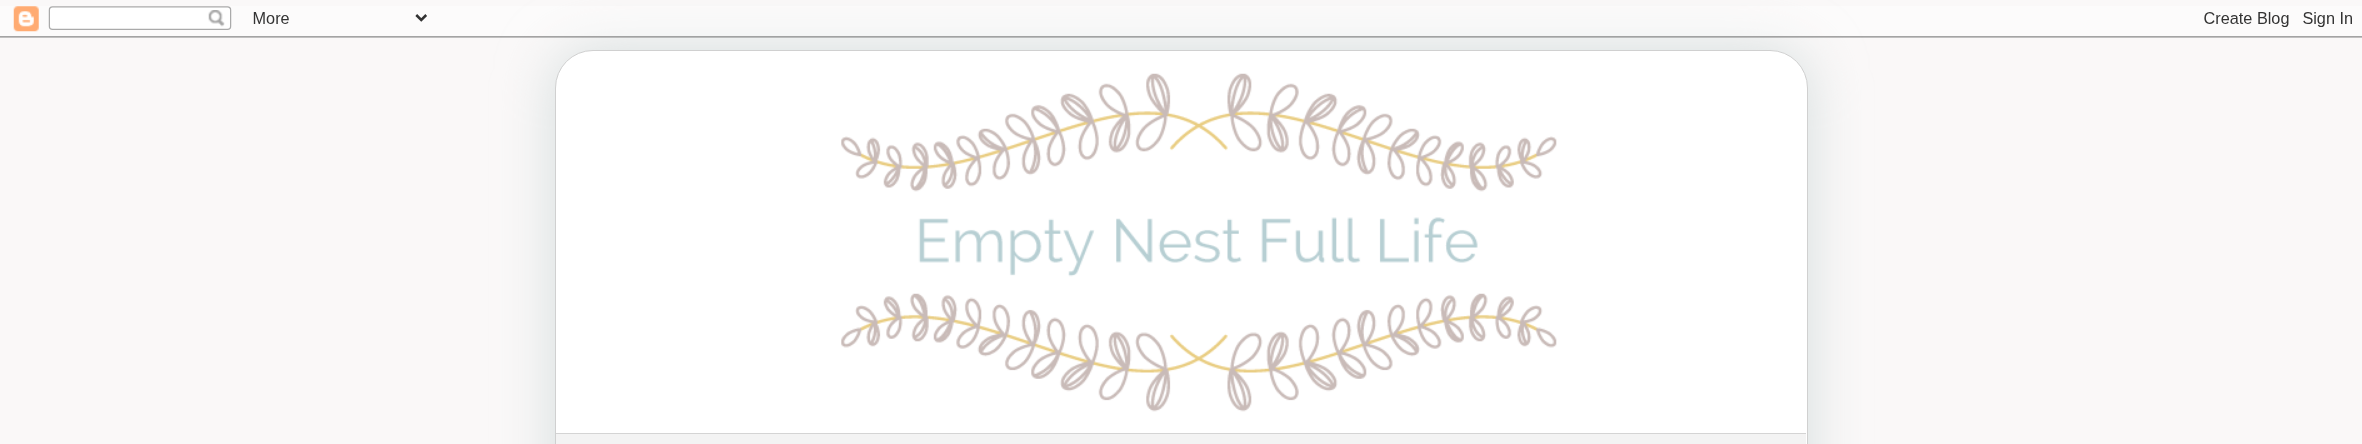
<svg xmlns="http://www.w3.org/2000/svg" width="2362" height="444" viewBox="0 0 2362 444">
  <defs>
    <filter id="blur1" x="-50%" y="-200%" width="200%" height="500%"><feGaussianBlur stdDeviation="28"/></filter>
  </defs>
  <rect width="100%" height="100%" fill="#faf8f8"/>
  <rect x="555" y="50" width="1253" height="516" rx="38" fill="#d4dddd" filter="url(#blur1)"/>
  <rect x="555.5" y="50.5" width="1252" height="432" rx="37.5" fill="#ffffff" stroke="#d0d0d0"/>
  <image x="841" y="73" width="716" height="339" href="img1.png"/>
  <rect x="556" y="434" width="1250" height="10" fill="#f3f3f3"/>
  <rect x="556" y="433" width="1250" height="1" fill="#d4d4d4"/>
  <image x="0" y="6" width="2362" height="32" href="img2.png"/>
</svg>
